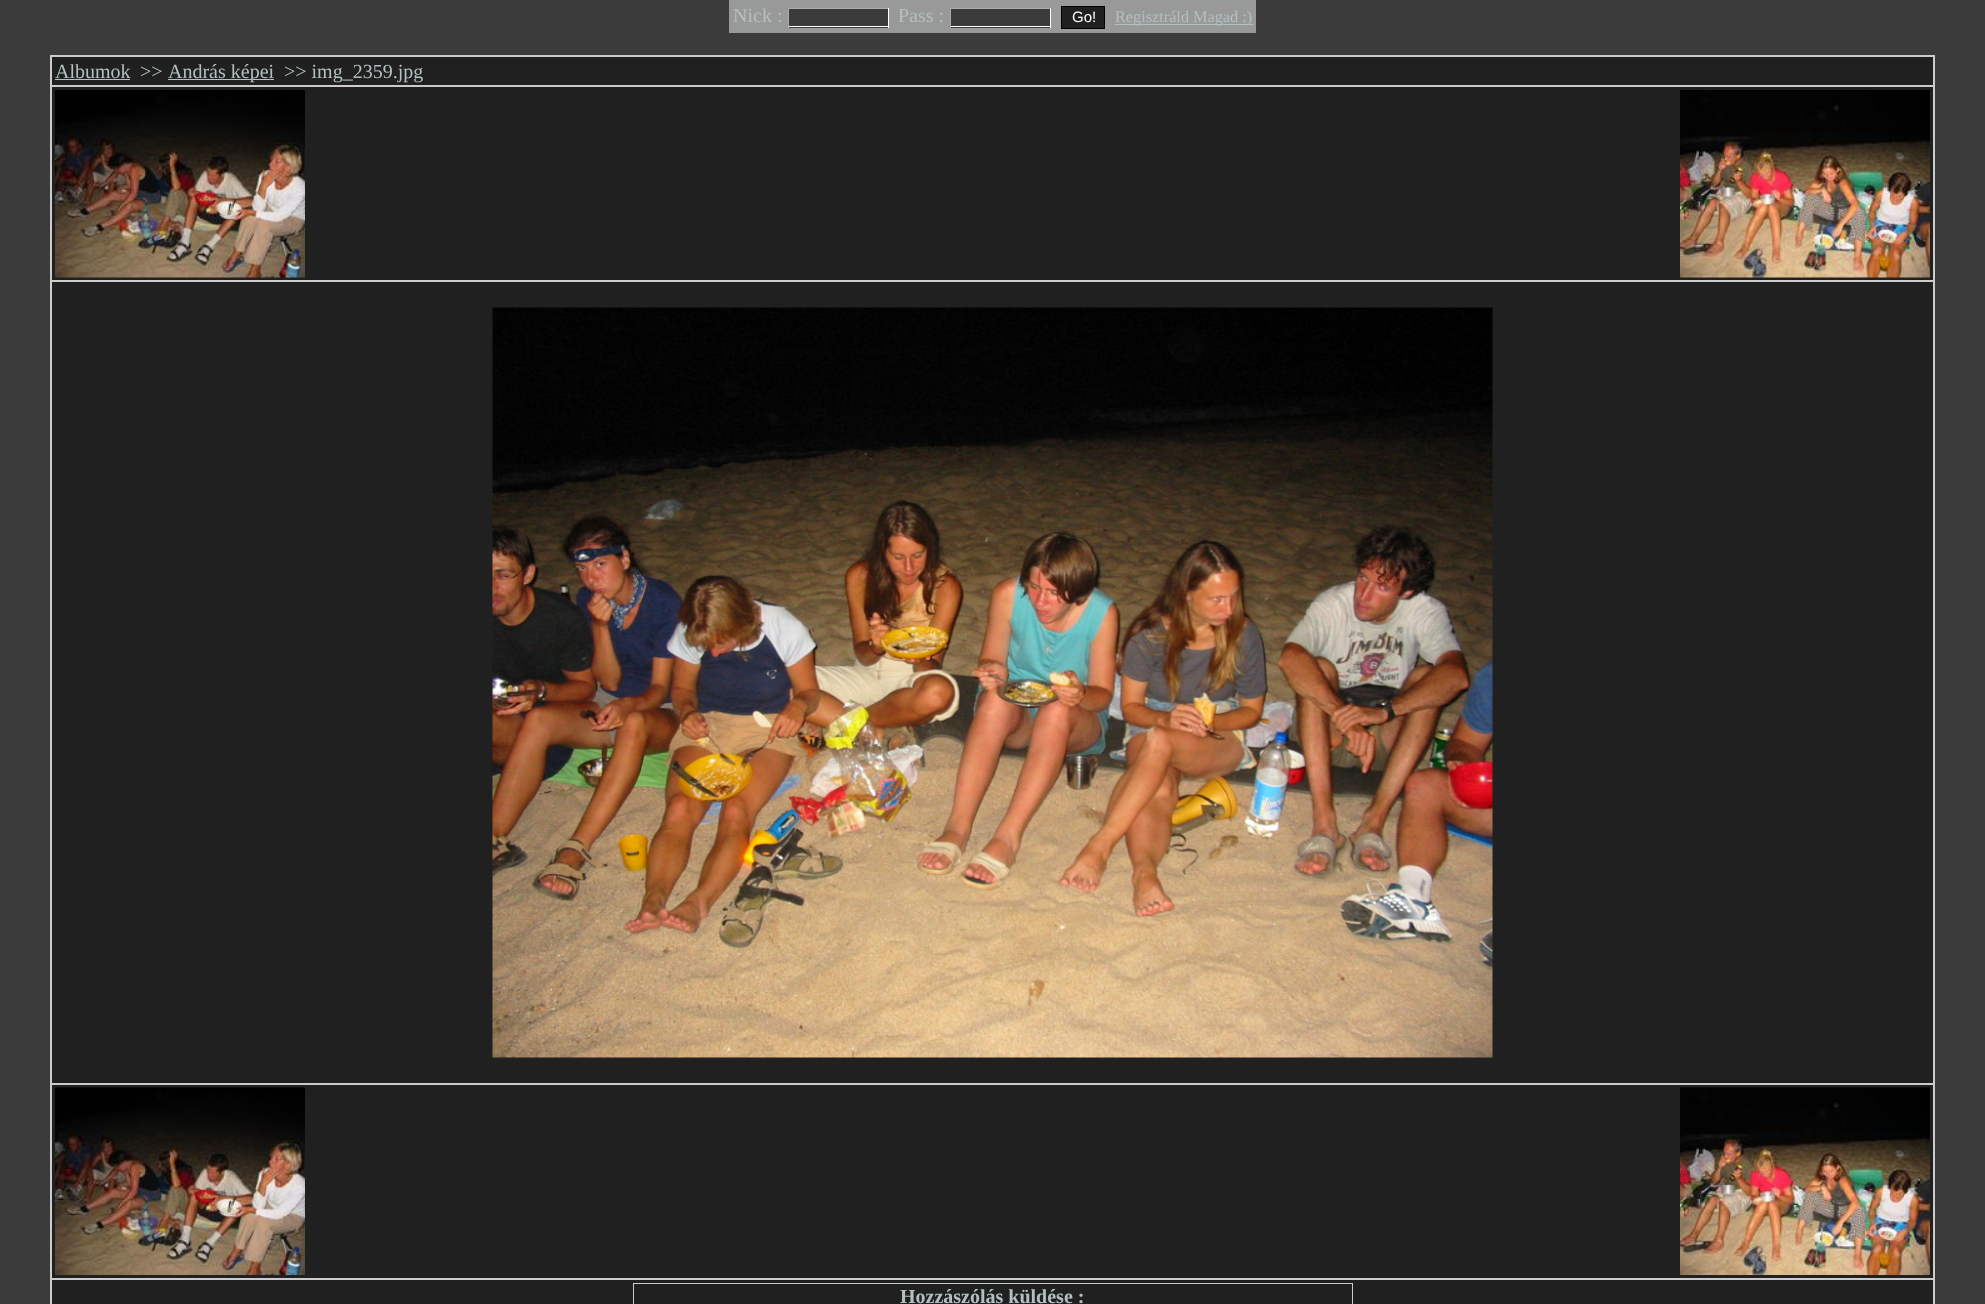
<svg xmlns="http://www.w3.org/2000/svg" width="1985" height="1304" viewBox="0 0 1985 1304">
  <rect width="100%" height="100%" fill="#3b3b3b"/>
  <rect x="729" y="0" width="527" height="33" fill="#999999"/>
  <text x="733" y="22" font-family="Liberation Serif" font-size="20" fill="#b3c0c0">Nick :</text>
  <rect x="789" y="9" width="99" height="19" fill="#3b3b3b"/>
  <rect x="788" y="8" width="101" height="1" fill="#aaaaaa"/>
  <rect x="888" y="8" width="1" height="20" fill="#ffffff"/>
  <rect x="788" y="26" width="101" height="1" fill="#ffffff"/>
  <rect x="788" y="8" width="1" height="20" fill="#aaaaaa"/>
  <text x="898" y="22" font-family="Liberation Serif" font-size="20" fill="#b3c0c0">Pass :</text>
  <rect x="951" y="9" width="99" height="19" fill="#3b3b3b"/>
  <rect x="950" y="8" width="101" height="1" fill="#aaaaaa"/>
  <rect x="1050" y="8" width="1" height="20" fill="#ffffff"/>
  <rect x="950" y="26" width="101" height="1" fill="#ffffff"/>
  <rect x="950" y="8" width="1" height="20" fill="#aaaaaa"/>
  <rect x="1061.5" y="6.5" width="43" height="22" fill="#202020" stroke="#000000"/>
  <text x="1072" y="22" font-family="Liberation Sans" font-size="15" fill="#ffffff">Go!</text>
  <rect x="1115" y="24" width="138" height="1" fill="#b3c0c0"/>
  <text x="1115" y="22" font-family="Liberation Serif" font-size="16.25" fill="#b3c0c0">Regisztráld Magad :)</text>
  <rect x="52" y="57" width="1881" height="1247" fill="#202020"/>
  <rect x="50.5" y="55.5" width="1884" height="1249" fill="none" stroke="#cccccc"/>
  <rect x="51.5" y="56.5" width="1882" height="29" fill="none" stroke="#cccccc"/>
  <text x="55" y="78" font-family="Liberation Serif" font-size="20" fill="#b3c0c0">Albumok</text>
  <rect x="55" y="79" width="75" height="1" fill="#b3c0c0"/>
  <text x="140" y="78" font-family="Liberation Serif" font-size="20" fill="#b3c0c0">&gt;&gt;</text>
  <rect x="168" y="79" width="106" height="1" fill="#b3c0c0"/>
  <text x="168" y="78" font-family="Liberation Serif" font-size="20" fill="#b3c0c0">András képei</text>
  <text x="284" y="78" font-family="Liberation Serif" font-size="20" fill="#b3c0c0">&gt;&gt; img_2359.jpg</text>
  <rect x="51.5" y="86.5" width="1882" height="194" fill="none" stroke="#cccccc"/>
  <image x="55" y="90" width="250" height="188" href="img1.png"/>
  <image x="1680" y="90" width="250" height="188" href="img2.png"/>
  <rect x="51.5" y="281.5" width="1882" height="802" fill="none" stroke="#cccccc"/>
  <image x="492" y="307" width="1001" height="751" href="img3.png"/>
  <rect x="51.5" y="1084.5" width="1882" height="194" fill="none" stroke="#cccccc"/>
  <image x="55" y="1087" width="250" height="188" href="img4.png"/>
  <image x="1680" y="1087" width="250" height="188" href="img5.png"/>
  <rect x="51.5" y="1279.5" width="1882" height="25" fill="none" stroke="#cccccc"/>
  <rect x="633.5" y="1283.5" width="719" height="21" fill="none" stroke="#cccccc"/>
  <text x="900" y="1303" font-family="Liberation Serif" font-size="20" font-weight="bold" fill="#b3c0c0">Hozzászólás küldése :</text>
</svg>
